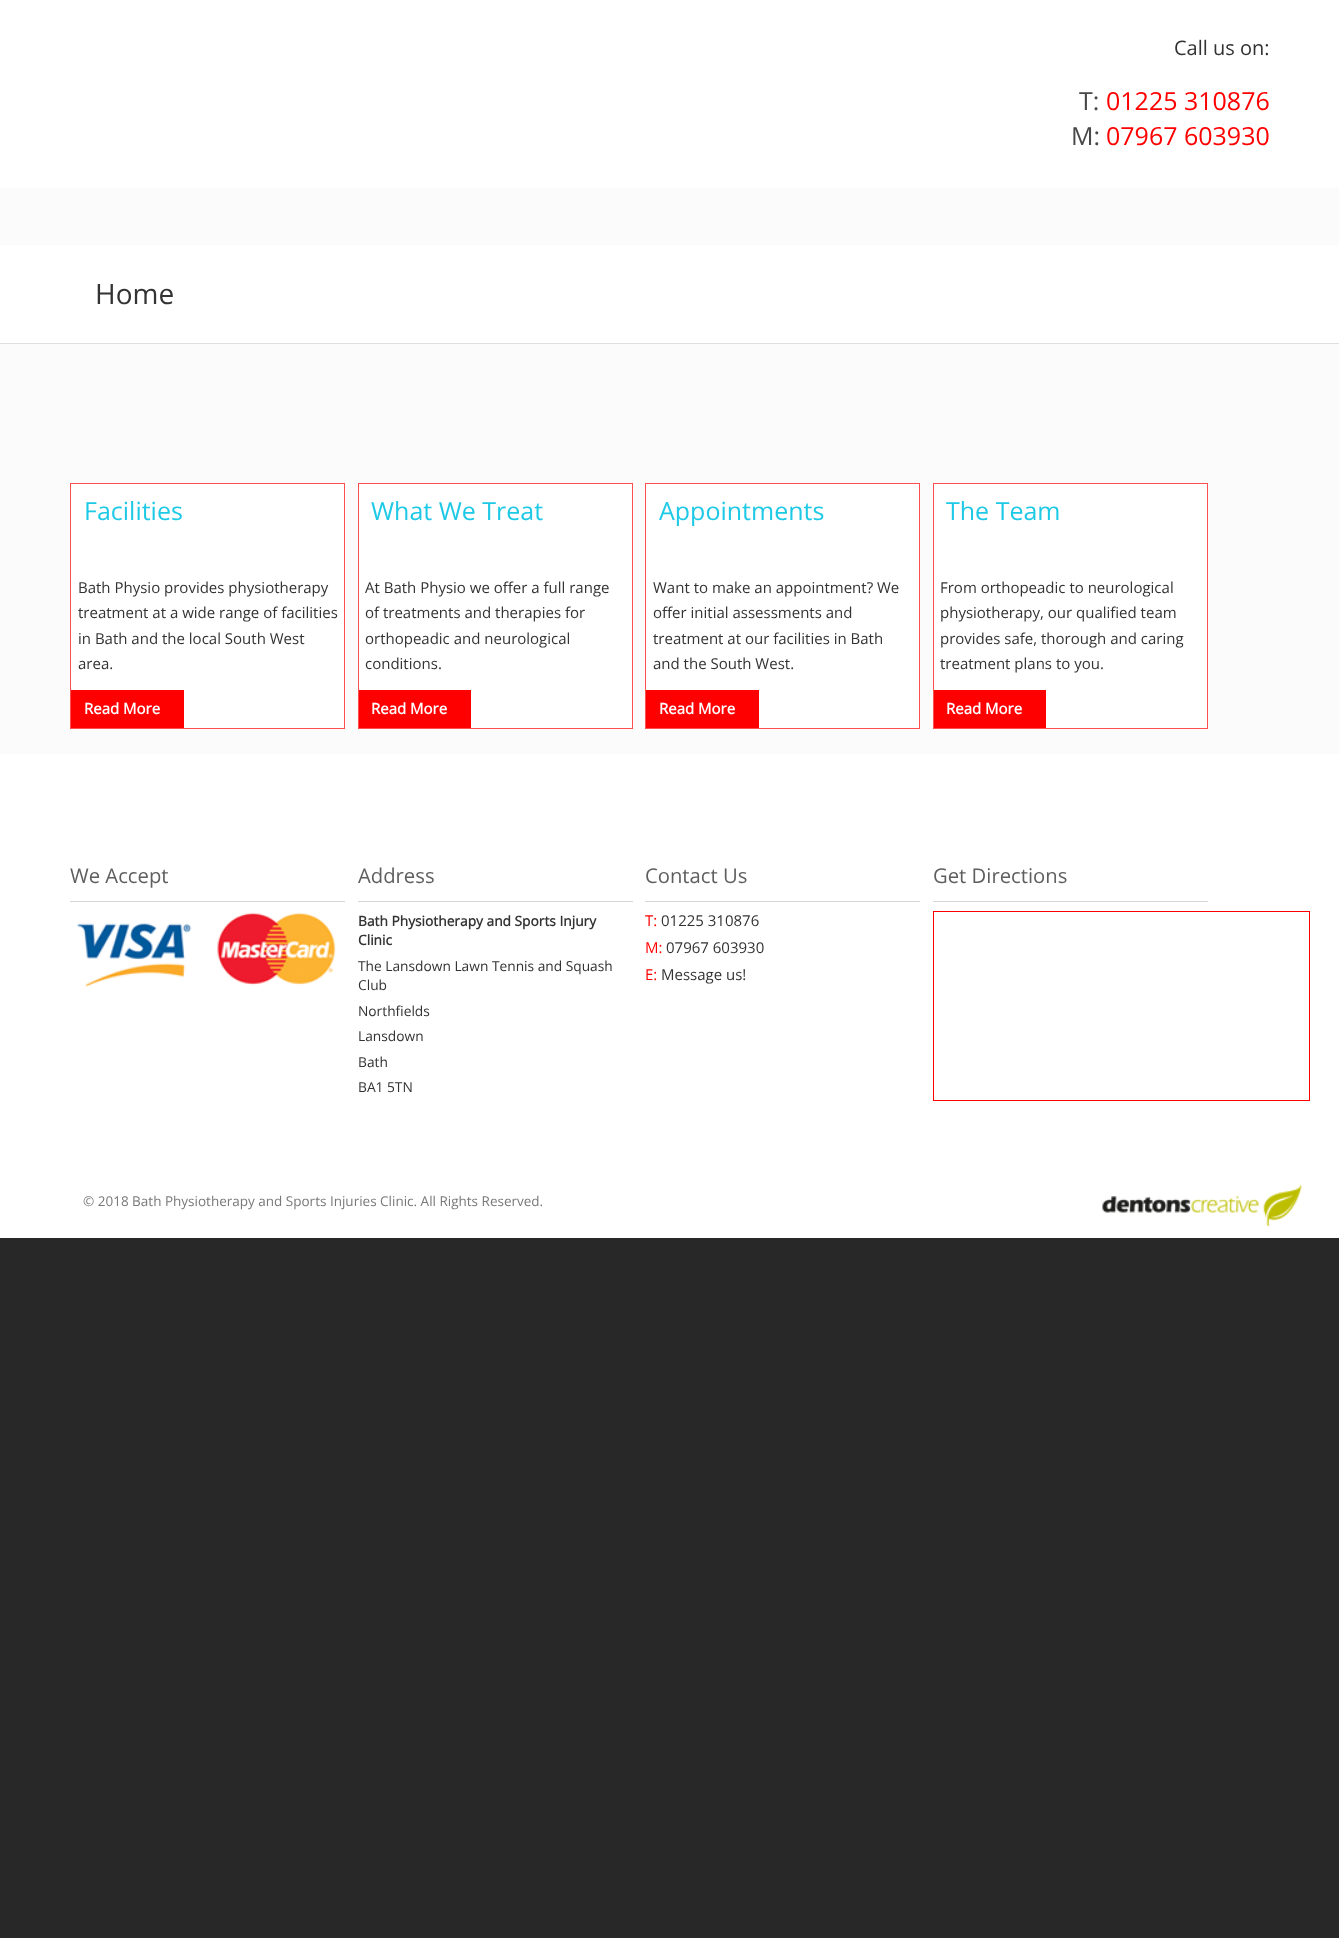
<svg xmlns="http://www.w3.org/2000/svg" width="1339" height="1938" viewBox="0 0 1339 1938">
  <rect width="100%" height="100%" fill="#282828"/>
  <rect x="0" y="188" width="1339" height="566" fill="#fbfbfb"/>
  <rect x="0" y="0" width="1339" height="188" fill="#ffffff"/>
  <text x="1174" y="55" font-family="Open Sans" font-size="20" fill="#333333">Call us on:</text>
  <text x="1079" y="110" font-family="Open Sans" font-size="25" fill="#484848">T:</text>
  <text x="1106" y="110" font-family="Open Sans" font-size="25" fill="#ff0000">01225 310876</text>
  <text x="1071" y="145" font-family="Open Sans" font-size="25" fill="#484848">M:</text>
  <text x="1106" y="145" font-family="Open Sans" font-size="25" fill="#ff0000">07967 603930</text>
  <rect x="0" y="245" width="1339" height="98" fill="#ffffff"/>
  <text x="95" y="304" font-family="Open Sans" font-size="28" fill="#333333">Home</text>
  <rect x="0" y="343" width="1339" height="1" fill="#dfdfdf"/>
  <rect x="70.5" y="483.5" width="274" height="245" fill="#ffffff" stroke="#fe4e4e"/>
  <text x="84" y="520" font-family="Open Sans" font-size="25" fill="#1ec9e6">Facilities</text>
  <text x="78" y="593" font-family="Open Sans" font-size="15" fill="#333333">Bath Physio provides physiotherapy</text>
  <text x="78" y="618" font-family="Open Sans" font-size="15" fill="#333333">treatment at a wide range of facilities</text>
  <text x="78" y="644" font-family="Open Sans" font-size="15" fill="#333333">in Bath and the local South West</text>
  <text x="78" y="669" font-family="Open Sans" font-size="15" fill="#333333">area.</text>
  <rect x="71" y="690" width="113" height="38" fill="#ff0000"/>
  <text x="84" y="714" font-family="Open Sans" font-size="15" font-weight="bold" fill="#ffffff">Read More</text>
  <rect x="358.5" y="483.5" width="274" height="245" fill="#ffffff" stroke="#fe4e4e"/>
  <text x="371" y="520" font-family="Open Sans" font-size="25" fill="#1ec9e6">What We Treat</text>
  <text x="365" y="593" font-family="Open Sans" font-size="15" fill="#333333">At Bath Physio we offer a full range</text>
  <text x="365" y="618" font-family="Open Sans" font-size="15" fill="#333333">of treatments and therapies for</text>
  <text x="365" y="644" font-family="Open Sans" font-size="15" fill="#333333">orthopeadic and neurological</text>
  <text x="365" y="669" font-family="Open Sans" font-size="15" fill="#333333">conditions.</text>
  <rect x="359" y="690" width="112" height="38" fill="#ff0000"/>
  <text x="371" y="714" font-family="Open Sans" font-size="15" font-weight="bold" fill="#ffffff">Read More</text>
  <rect x="645.5" y="483.5" width="274" height="245" fill="#ffffff" stroke="#fe4e4e"/>
  <text x="659" y="520" font-family="Open Sans" font-size="25" fill="#1ec9e6">Appointments</text>
  <text x="653" y="593" font-family="Open Sans" font-size="15" fill="#333333">Want to make an appointment? We</text>
  <text x="653" y="618" font-family="Open Sans" font-size="15" fill="#333333">offer initial assessments and</text>
  <text x="653" y="644" font-family="Open Sans" font-size="15" fill="#333333">treatment at our facilities in Bath</text>
  <text x="653" y="669" font-family="Open Sans" font-size="15" fill="#333333">and the South West.</text>
  <rect x="646" y="690" width="113" height="38" fill="#ff0000"/>
  <text x="659" y="714" font-family="Open Sans" font-size="15" font-weight="bold" fill="#ffffff">Read More</text>
  <rect x="933.5" y="483.5" width="274" height="245" fill="#ffffff" stroke="#fe4e4e"/>
  <text x="946" y="520" font-family="Open Sans" font-size="25" fill="#1ec9e6">The Team</text>
  <text x="940" y="593" font-family="Open Sans" font-size="15" fill="#333333">From orthopeadic to neurological</text>
  <text x="940" y="618" font-family="Open Sans" font-size="15" fill="#333333">physiotherapy, our qualified team</text>
  <text x="940" y="644" font-family="Open Sans" font-size="15" fill="#333333">provides safe, thorough and caring</text>
  <text x="940" y="669" font-family="Open Sans" font-size="15" fill="#333333">treatment plans to you.</text>
  <rect x="934" y="690" width="112" height="38" fill="#ff0000"/>
  <text x="946" y="714" font-family="Open Sans" font-size="15" font-weight="bold" fill="#ffffff">Read More</text>
  <rect x="0" y="754" width="1339" height="484" fill="#ffffff"/>
  <rect x="70" y="901" width="275" height="1" fill="#d6d6d6"/>
  <text x="70" y="883" font-family="Open Sans" font-size="20.25" fill="#5f5f5f">We Accept</text>
  <image x="77" y="912" width="259" height="75" href="img1.png"/>
  <rect x="358" y="901" width="275" height="1" fill="#d6d6d6"/>
  <text x="358" y="883" font-family="Open Sans" font-size="20.25" fill="#5f5f5f">Address</text>
  <text x="358" y="926" font-family="Open Sans" font-size="13.75" font-weight="bold" fill="#333333">Bath Physiotherapy and Sports Injury</text>
  <text x="358" y="945" font-family="Open Sans" font-size="13.75" font-weight="bold" fill="#333333">Clinic</text>
  <text x="358" y="971" font-family="Open Sans" font-size="13.75" fill="#333333">The Lansdown Lawn Tennis and Squash</text>
  <text x="358" y="990" font-family="Open Sans" font-size="13.75" fill="#333333">Club</text>
  <text x="358" y="1016" font-family="Open Sans" font-size="13.75" fill="#333333">Northfields</text>
  <text x="358" y="1041" font-family="Open Sans" font-size="13.75" fill="#333333">Lansdown</text>
  <text x="358" y="1067" font-family="Open Sans" font-size="13.75" fill="#333333">Bath</text>
  <text x="358" y="1092" font-family="Open Sans" font-size="13.75" fill="#333333">BA1 5TN</text>
  <rect x="645" y="901" width="275" height="1" fill="#d6d6d6"/>
  <text x="645" y="883" font-family="Open Sans" font-size="20.25" fill="#5f5f5f">Contact Us</text>
  <text x="645" y="926" font-family="Open Sans" font-size="15" fill="#ff0000">T:</text>
  <text x="661" y="926" font-family="Open Sans" font-size="15" fill="#333333">01225 310876</text>
  <text x="645" y="953" font-family="Open Sans" font-size="15" fill="#ff0000">M:</text>
  <text x="666" y="953" font-family="Open Sans" font-size="15" fill="#333333">07967 603930</text>
  <text x="645" y="980" font-family="Open Sans" font-size="15" fill="#ff0000">E:</text>
  <text x="661" y="980" font-family="Open Sans" font-size="15" fill="#333333">Message us!</text>
  <rect x="933" y="901" width="275" height="1" fill="#d6d6d6"/>
  <text x="933" y="883" font-family="Open Sans" font-size="20.25" fill="#5f5f5f">Get Directions</text>
  <rect x="933.5" y="911.5" width="376" height="189" fill="none" stroke="#ff0000"/>
  <text x="83" y="1206" font-family="Open Sans" font-size="13.5" fill="#797979">© 2018 Bath Physiotherapy and Sports Injuries Clinic. All Rights Reserved.</text>
  <image x="1102" y="1185" width="200" height="42" href="img2.png"/>
</svg>
